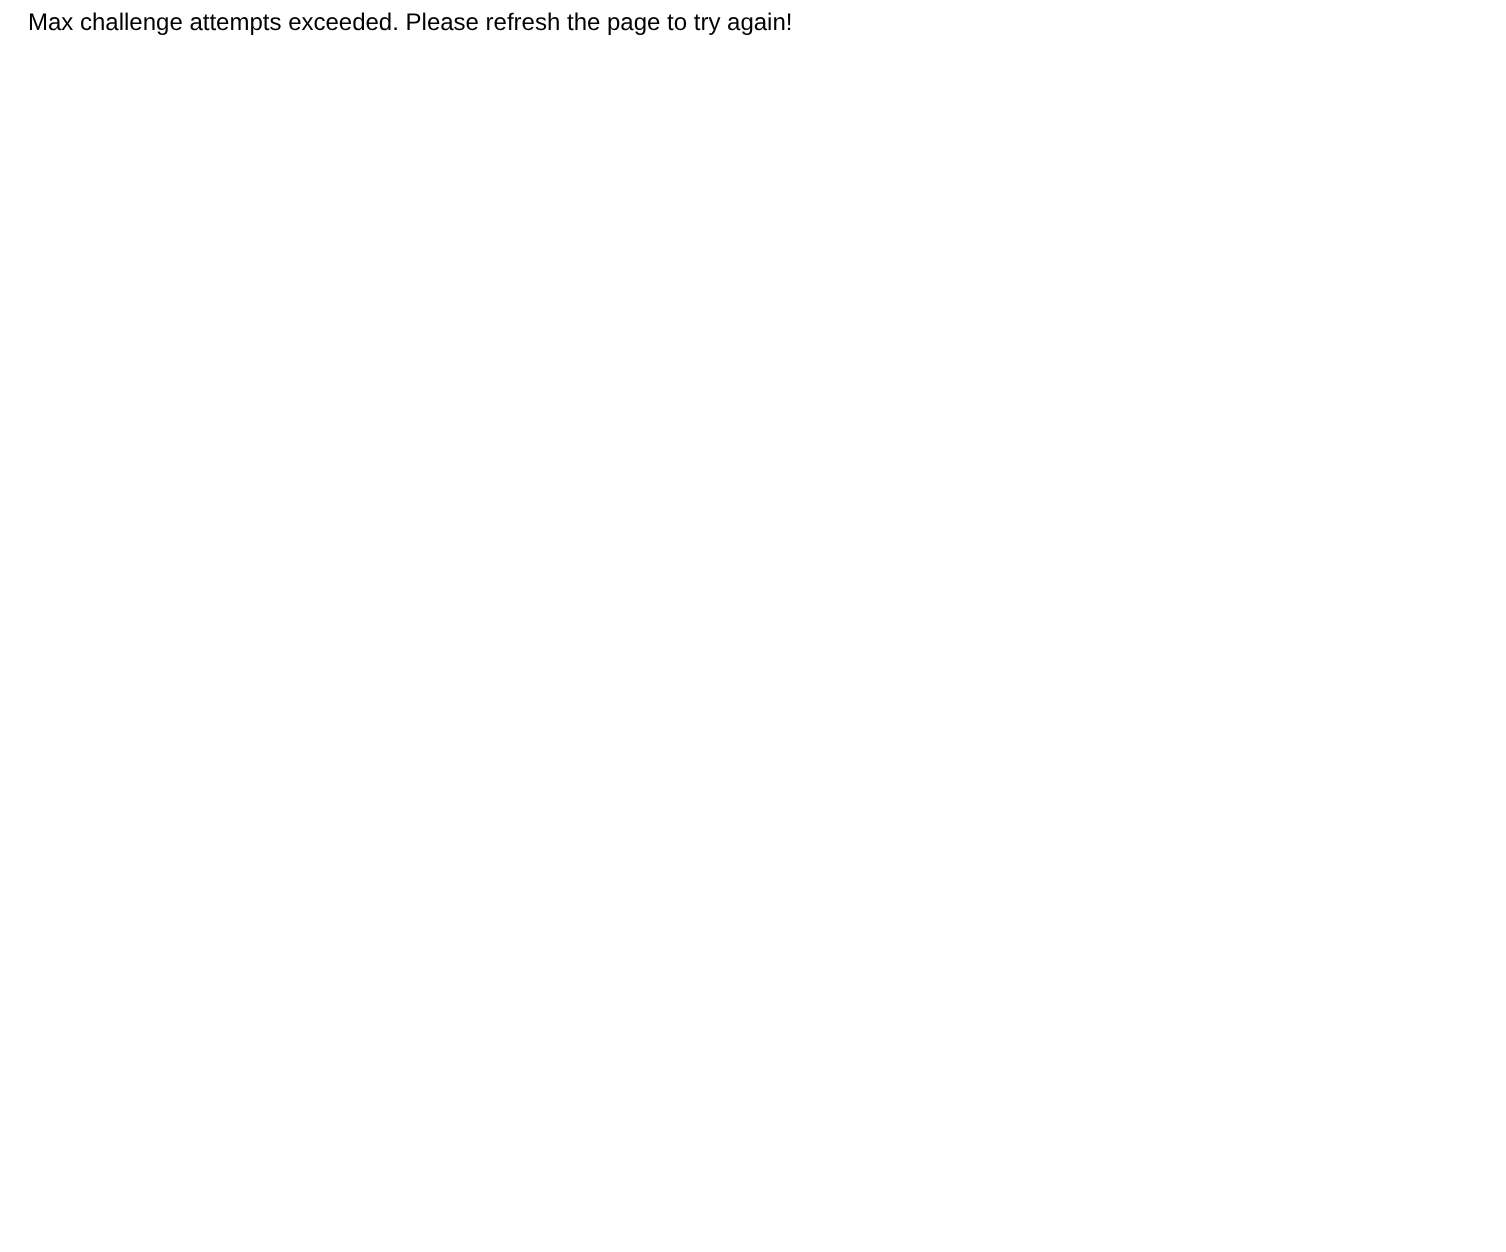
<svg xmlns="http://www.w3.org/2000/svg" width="1506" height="1252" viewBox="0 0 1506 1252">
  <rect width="100%" height="100%" fill="#ffffff"/>
  <text x="28" y="30" font-family="Liberation Sans" font-size="24" fill="#000000">Max challenge attempts exceeded. Please refresh the page to try again!</text>
</svg>
